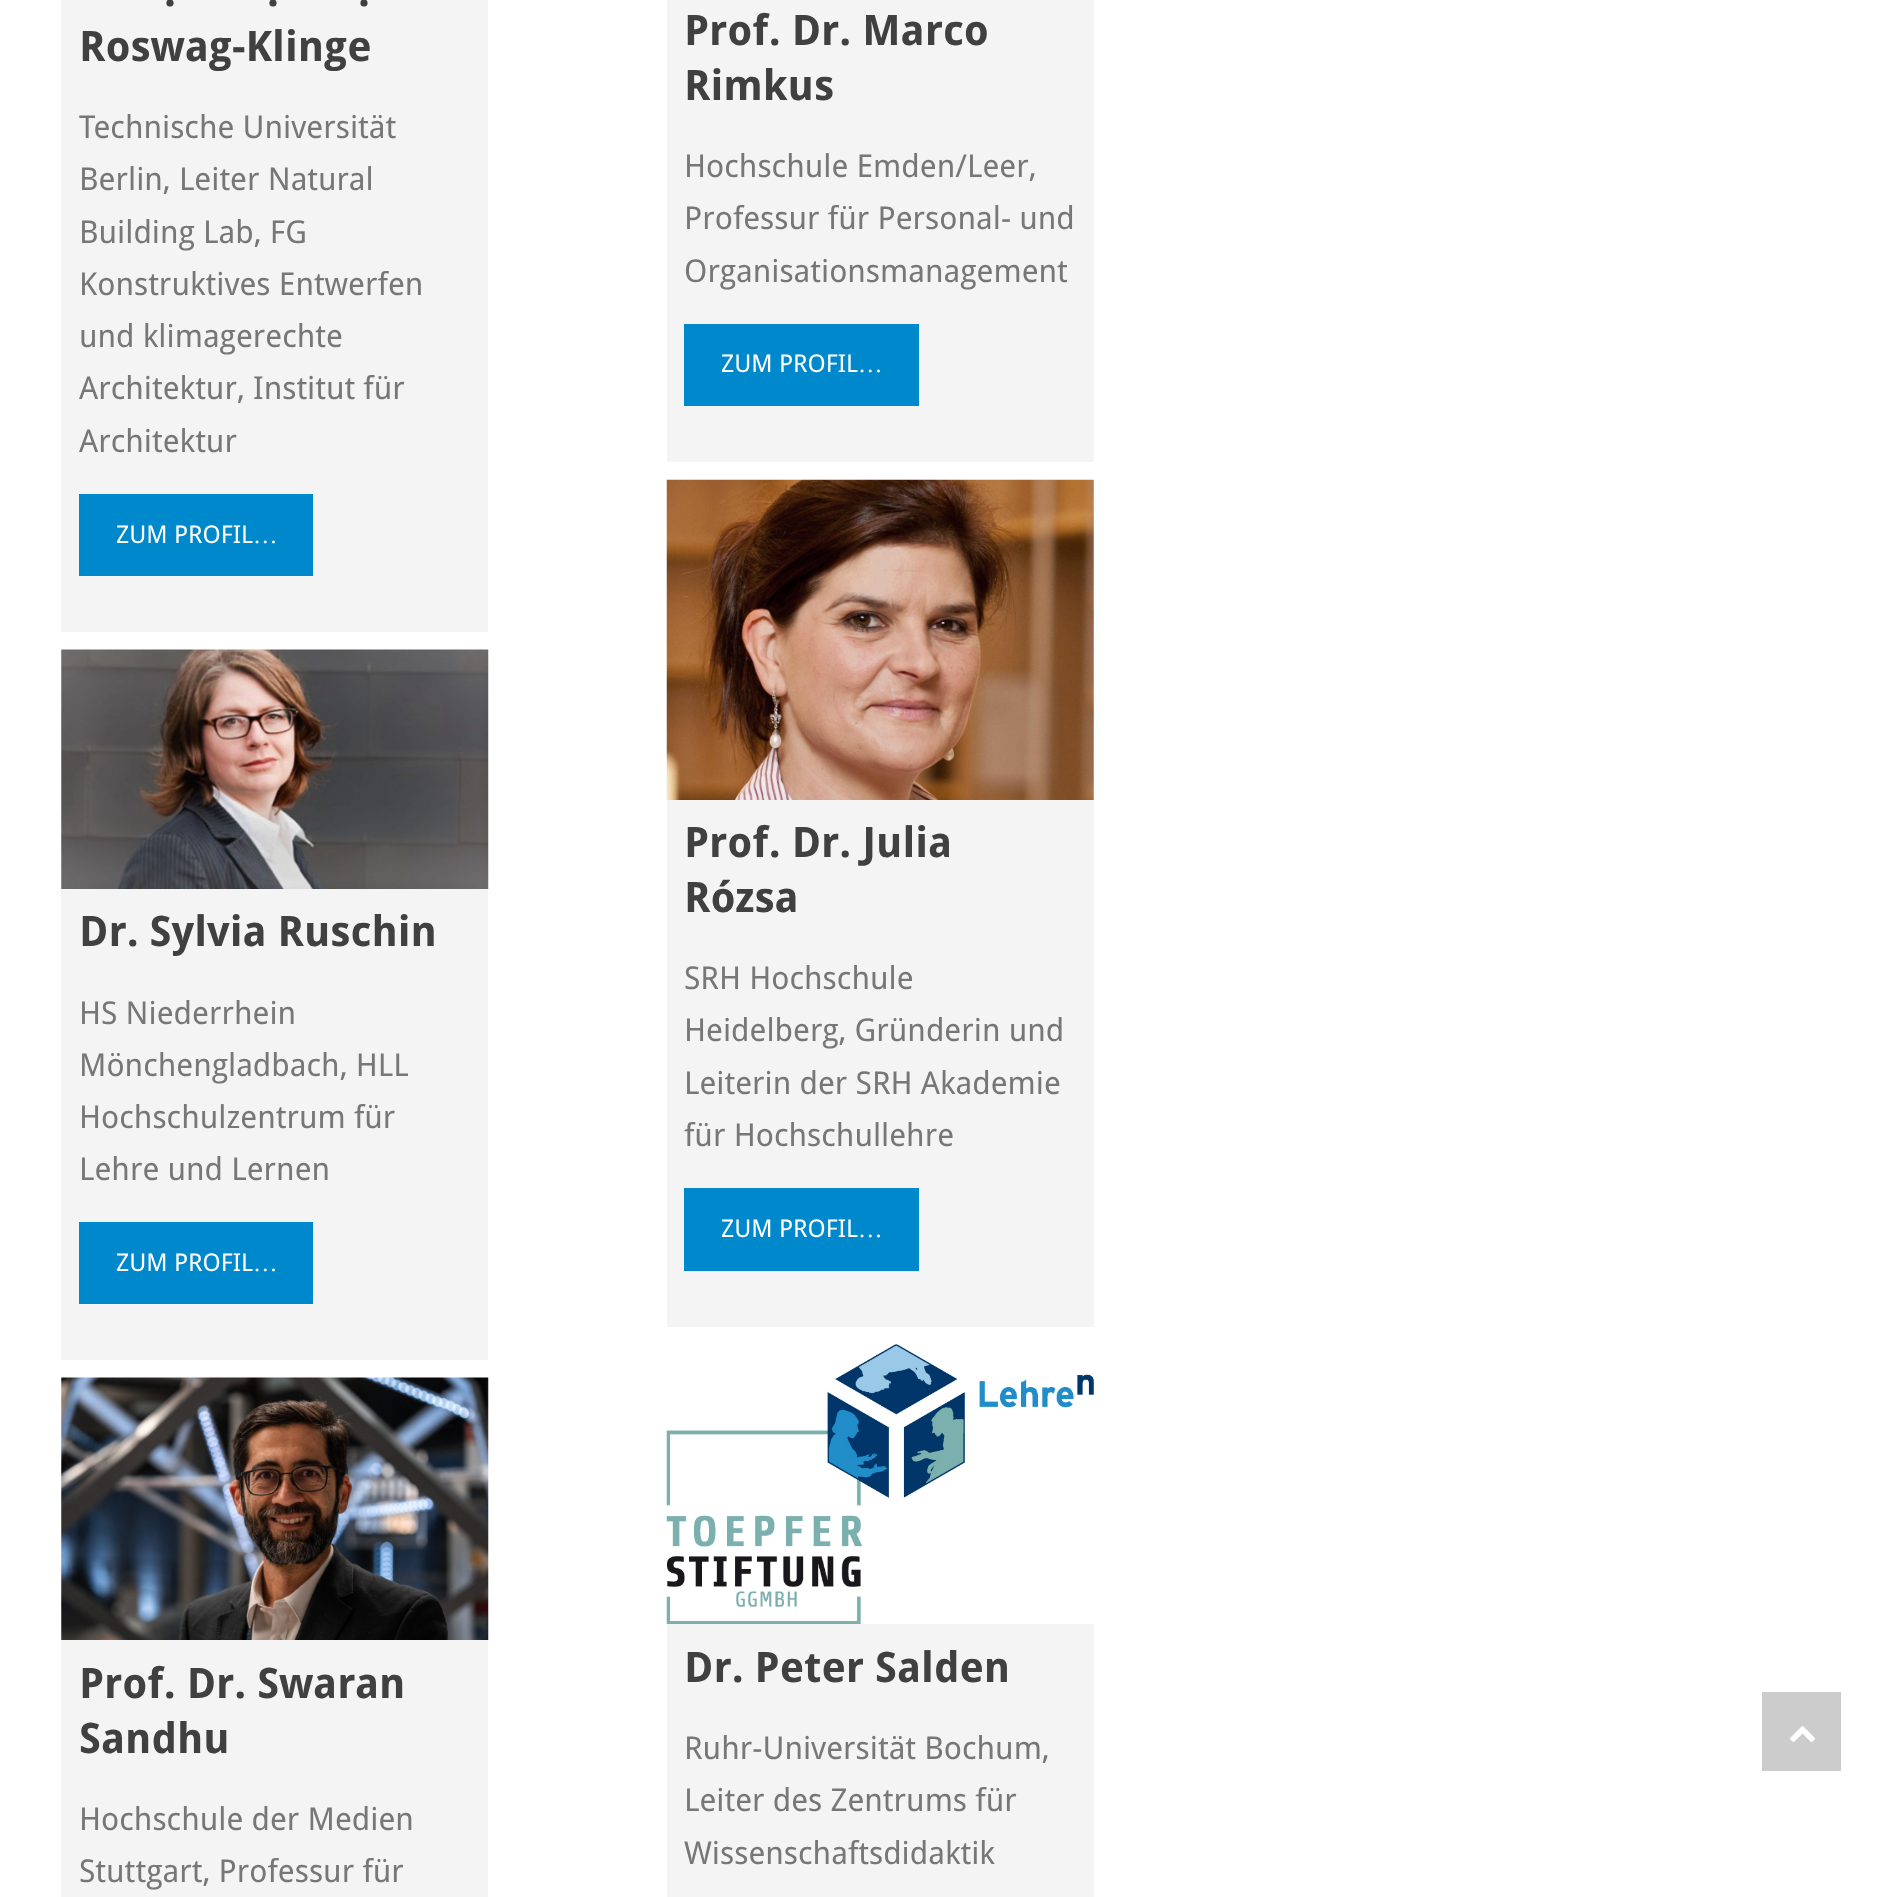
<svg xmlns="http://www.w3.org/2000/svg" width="1878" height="1897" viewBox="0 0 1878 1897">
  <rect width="100%" height="100%" fill="#ffffff"/>
  <rect x="61" y="0" width="427" height="632" fill="#f4f4f4"/>
  <text x="164" y="6" font-family="Droid Sans" font-size="42" font-weight="bold" fill="#404040">.</text>
  <text x="267" y="6" font-family="Droid Sans" font-size="42" font-weight="bold" fill="#404040">.</text>
  <text x="358" y="6" font-family="Droid Sans" font-size="42" font-weight="bold" fill="#404040">.</text>
  <text x="79" y="61" font-family="Droid Sans" font-size="42" font-weight="bold" fill="#404040">Roswag-Klinge</text>
  <text x="79" y="138" font-family="Droid Sans" font-size="31.5" fill="#777777">Technische Universität</text>
  <text x="79" y="190" font-family="Droid Sans" font-size="31.5" fill="#777777">Berlin, Leiter Natural</text>
  <text x="79" y="243" font-family="Droid Sans" font-size="31.5" fill="#777777">Building Lab, FG</text>
  <text x="79" y="295" font-family="Droid Sans" font-size="31.5" fill="#777777">Konstruktives Entwerfen</text>
  <text x="79" y="347" font-family="Droid Sans" font-size="31.5" fill="#777777">und klimagerechte</text>
  <text x="79" y="399" font-family="Droid Sans" font-size="31.5" fill="#777777">Architektur, Institut für</text>
  <text x="79" y="452" font-family="Droid Sans" font-size="31.5" fill="#777777">Architektur</text>
  <rect x="79" y="494" width="234" height="82" fill="#0088cc"/>
  <text x="116" y="543" font-family="Droid Sans" font-size="24.5" fill="#ffffff">ZUM PROFIL</text>
  <text x="253" y="543" font-family="Liberation Serif" font-size="24.5" fill="#ffffff">…</text>
  <rect x="667" y="0" width="427" height="462" fill="#f4f4f4"/>
  <text x="684" y="45" font-family="Droid Sans" font-size="42" font-weight="bold" fill="#404040">Prof. Dr. Marco</text>
  <text x="684" y="100" font-family="Droid Sans" font-size="42" font-weight="bold" fill="#404040">Rimkus</text>
  <text x="684" y="177" font-family="Droid Sans" font-size="31.5" fill="#777777">Hochschule Emden/Leer,</text>
  <text x="684" y="229" font-family="Droid Sans" font-size="31.5" fill="#777777">Professur für Personal- und</text>
  <text x="684" y="282" font-family="Droid Sans" font-size="31.5" fill="#777777">Organisationsmanagement</text>
  <rect x="684" y="324" width="235" height="82" fill="#0088cc"/>
  <text x="721" y="372" font-family="Droid Sans" font-size="24.5" fill="#ffffff">ZUM PROFIL</text>
  <text x="858" y="372" font-family="Liberation Serif" font-size="24.5" fill="#ffffff">…</text>
  <image x="61" y="649" width="428" height="241" href="img1.png"/>
  <rect x="61" y="889" width="427" height="471" fill="#f4f4f4"/>
  <text x="79" y="946" font-family="Droid Sans" font-size="42" font-weight="bold" fill="#404040">Dr. Sylvia Ruschin</text>
  <text x="79" y="1024" font-family="Droid Sans" font-size="31.5" fill="#777777">HS Niederrhein</text>
  <text x="79" y="1076" font-family="Droid Sans" font-size="31.5" fill="#777777">Mönchengladbach, HLL</text>
  <text x="79" y="1128" font-family="Droid Sans" font-size="31.5" fill="#777777">Hochschulzentrum für</text>
  <text x="79" y="1180" font-family="Droid Sans" font-size="31.5" fill="#777777">Lehre und Lernen</text>
  <rect x="79" y="1222" width="234" height="82" fill="#0088cc"/>
  <text x="116" y="1271" font-family="Droid Sans" font-size="24.5" fill="#ffffff">ZUM PROFIL</text>
  <text x="253" y="1271" font-family="Liberation Serif" font-size="24.5" fill="#ffffff">…</text>
  <image x="666" y="479" width="428" height="321" href="img2.png"/>
  <rect x="667" y="800" width="427" height="527" fill="#f4f4f4"/>
  <text x="684" y="857" font-family="Droid Sans" font-size="42" font-weight="bold" fill="#404040">Prof. Dr. Julia</text>
  <text x="684" y="912" font-family="Droid Sans" font-size="42" font-weight="bold" fill="#404040">Rózsa</text>
  <text x="684" y="989" font-family="Droid Sans" font-size="31.5" fill="#777777">SRH Hochschule</text>
  <text x="684" y="1041" font-family="Droid Sans" font-size="31.5" fill="#777777">Heidelberg, Gründerin und</text>
  <text x="684" y="1094" font-family="Droid Sans" font-size="31.5" fill="#777777">Leiterin der SRH Akademie</text>
  <text x="684" y="1146" font-family="Droid Sans" font-size="31.5" fill="#777777">für Hochschullehre</text>
  <rect x="684" y="1188" width="235" height="83" fill="#0088cc"/>
  <text x="721" y="1237" font-family="Droid Sans" font-size="24.5" fill="#ffffff">ZUM PROFIL</text>
  <text x="858" y="1237" font-family="Liberation Serif" font-size="24.5" fill="#ffffff">…</text>
  <image x="61" y="1377" width="428" height="263" href="img3.png"/>
  <rect x="61" y="1640" width="427" height="257" fill="#f4f4f4"/>
  <text x="79" y="1698" font-family="Droid Sans" font-size="42" font-weight="bold" fill="#404040">Prof. Dr. Swaran</text>
  <text x="79" y="1753" font-family="Droid Sans" font-size="42" font-weight="bold" fill="#404040">Sandhu</text>
  <text x="79" y="1830" font-family="Droid Sans" font-size="31.5" fill="#777777">Hochschule der Medien</text>
  <text x="79" y="1882" font-family="Droid Sans" font-size="31.5" fill="#777777">Stuttgart, Professur für</text>
  <image x="666" y="1344" width="428" height="281" href="img4.png"/>
  <rect x="667" y="1624" width="427" height="273" fill="#f4f4f4"/>
  <text x="684" y="1682" font-family="Droid Sans" font-size="42" font-weight="bold" fill="#404040">Dr. Peter Salden</text>
  <text x="684" y="1759" font-family="Droid Sans" font-size="31.5" fill="#777777">Ruhr-Universität Bochum,</text>
  <text x="684" y="1811" font-family="Droid Sans" font-size="31.5" fill="#777777">Leiter des Zentrums für</text>
  <text x="684" y="1864" font-family="Droid Sans" font-size="31.5" fill="#777777">Wissenschaftsdidaktik</text>
  <rect x="1762" y="1692" width="79" height="79" fill="#cccccc"/>
  <image x="1790" y="1726" width="25" height="17" href="img5.png"/>
</svg>
